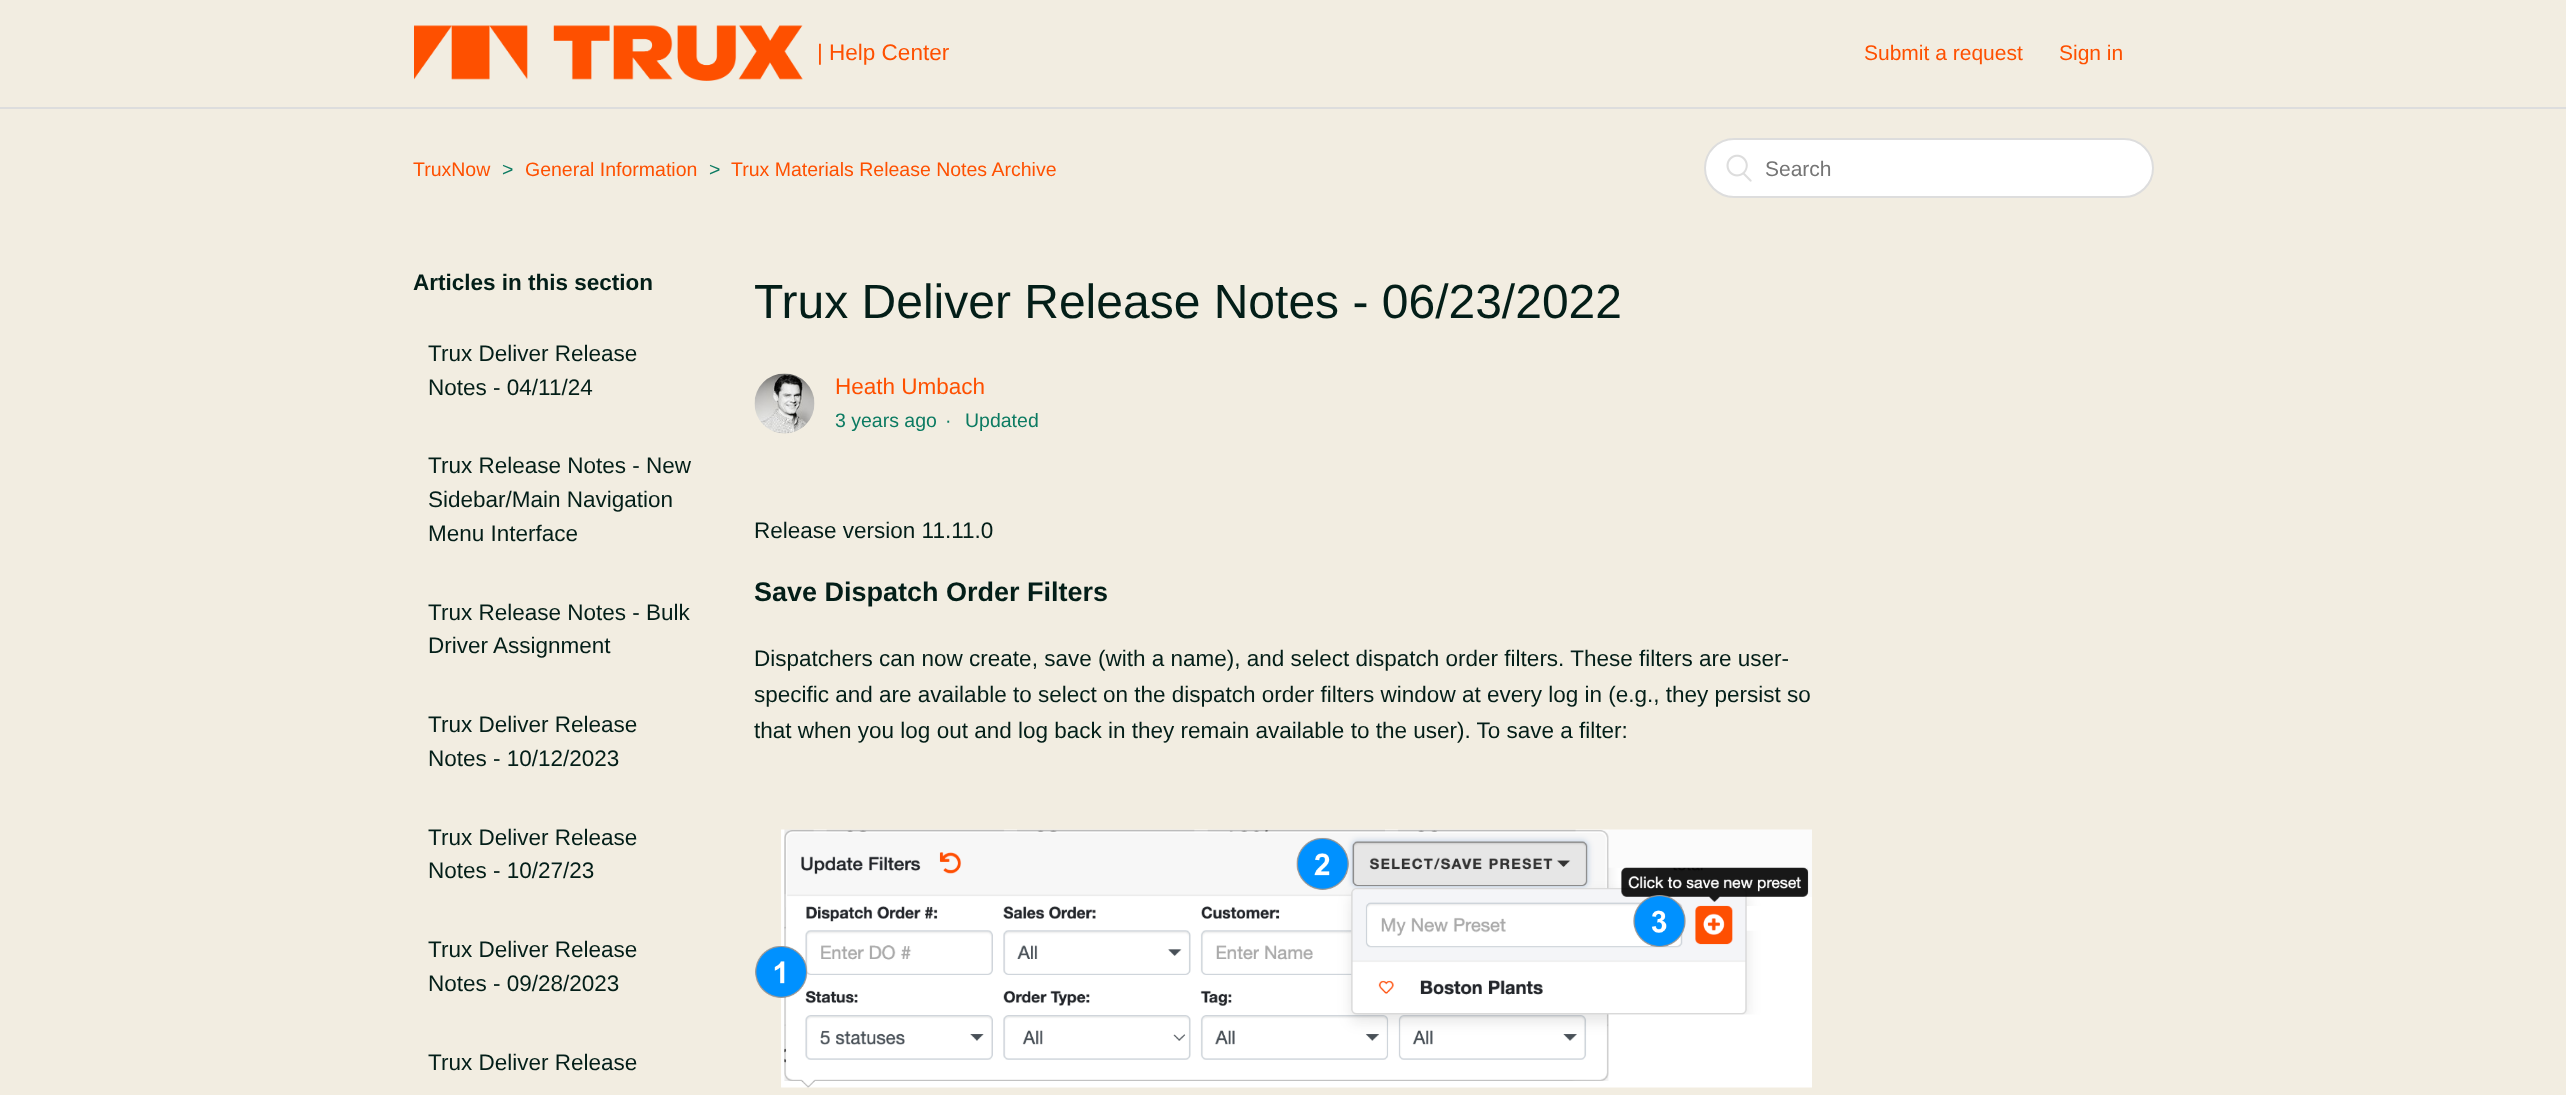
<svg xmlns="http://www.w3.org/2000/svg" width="2566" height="1095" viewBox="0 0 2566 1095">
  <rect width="100%" height="100%" fill="#f2ede1"/>
  <image x="414" y="25" width="389" height="56" href="img1.png"/>
  <text x="817" y="60" font-family="Liberation Sans" font-size="22.5" fill="#fe5000">| Help Center</text>
  <text x="1864" y="60" font-family="Liberation Sans" font-size="21" fill="#fe5000">Submit a request</text>
  <text x="2059" y="60" font-family="Liberation Sans" font-size="21" fill="#fe5000">Sign in</text>
  <rect x="0" y="107" width="2566" height="2" fill="#dddddd"/>
  <text x="413" y="176" font-family="Liberation Sans" font-size="19.5" fill="#fe5000">TruxNow</text>
  <text x="502" y="176" font-family="Liberation Sans" font-size="19.5" fill="#0c7b62">&gt;</text>
  <text x="525" y="176" font-family="Liberation Sans" font-size="19.5" fill="#fe5000">General Information</text>
  <text x="709" y="176" font-family="Liberation Sans" font-size="19.5" fill="#0c7b62">&gt;</text>
  <text x="731" y="176" font-family="Liberation Sans" font-size="19.5" fill="#fe5000">Trux Materials Release Notes Archive</text>
  <rect x="1705" y="139" width="448" height="58" rx="29" fill="#ffffff" stroke="#dddddd" stroke-width="2"/>
  <image x="1726" y="154" width="26" height="28" href="img2.png"/>
  <text x="1765" y="176" font-family="Liberation Sans" font-size="21" fill="#757575">Search</text>
  <text x="413" y="290" font-family="Liberation Sans" font-size="22.5" font-weight="bold" fill="#031e18">Articles in this section</text>
  <text x="428" y="361" font-family="Liberation Sans" font-size="22.5" fill="#031e18">Trux Deliver Release</text>
  <text x="428" y="395" font-family="Liberation Sans" font-size="22.5" fill="#031e18">Notes - 04/11/24</text>
  <text x="428" y="473" font-family="Liberation Sans" font-size="22.5" fill="#031e18">Trux Release Notes - New</text>
  <text x="428" y="507" font-family="Liberation Sans" font-size="22.5" fill="#031e18">Sidebar/Main Navigation</text>
  <text x="428" y="541" font-family="Liberation Sans" font-size="22.5" fill="#031e18">Menu Interface</text>
  <text x="428" y="620" font-family="Liberation Sans" font-size="22.5" fill="#031e18">Trux Release Notes - Bulk</text>
  <text x="428" y="653" font-family="Liberation Sans" font-size="22.5" fill="#031e18">Driver Assignment</text>
  <text x="428" y="732" font-family="Liberation Sans" font-size="22.5" fill="#031e18">Trux Deliver Release</text>
  <text x="428" y="766" font-family="Liberation Sans" font-size="22.5" fill="#031e18">Notes - 10/12/2023</text>
  <text x="428" y="845" font-family="Liberation Sans" font-size="22.5" fill="#031e18">Trux Deliver Release</text>
  <text x="428" y="878" font-family="Liberation Sans" font-size="22.5" fill="#031e18">Notes - 10/27/23</text>
  <text x="428" y="957" font-family="Liberation Sans" font-size="22.5" fill="#031e18">Trux Deliver Release</text>
  <text x="428" y="991" font-family="Liberation Sans" font-size="22.5" fill="#031e18">Notes - 09/28/2023</text>
  <text x="428" y="1070" font-family="Liberation Sans" font-size="22.5" fill="#031e18">Trux Deliver Release</text>
  <text x="754" y="318" font-family="Liberation Sans" font-size="48" fill="#031e18">Trux Deliver Release Notes - 06/23/2022</text>
  <image x="754" y="373" width="61" height="61" href="img3.png"/>
  <text x="835" y="394" font-family="Liberation Sans" font-size="22.5" fill="#fe5000">Heath Umbach</text>
  <text x="835" y="427" font-family="Liberation Sans" font-size="19.5" fill="#0c7b62">3 years ago</text>
  <text x="945" y="427" font-family="Liberation Sans" font-size="19.5" fill="#0c7b62">·</text>
  <text x="965" y="427" font-family="Liberation Sans" font-size="19.5" fill="#0c7b62">Updated</text>
  <text x="754" y="538" font-family="Liberation Sans" font-size="22.5" fill="#031e18">Release version 11.11.0</text>
  <text x="754" y="601" font-family="Liberation Sans" font-size="27" font-weight="bold" fill="#031e18">Save Dispatch Order Filters</text>
  <text x="754" y="666" font-family="Liberation Sans" font-size="22.5" fill="#031e18">Dispatchers can now create, save (with a name), and select dispatch order filters. These filters are user-</text>
  <text x="754" y="702" font-family="Liberation Sans" font-size="22.5" fill="#031e18">specific and are available to select on the dispatch order filters window at every log in (e.g., they persist so</text>
  <text x="754" y="738" font-family="Liberation Sans" font-size="22.5" fill="#031e18">that when you log out and log back in they remain available to the user). To save a filter:</text>
  <image x="755" y="829" width="1057" height="259" href="img4.png"/>
</svg>
